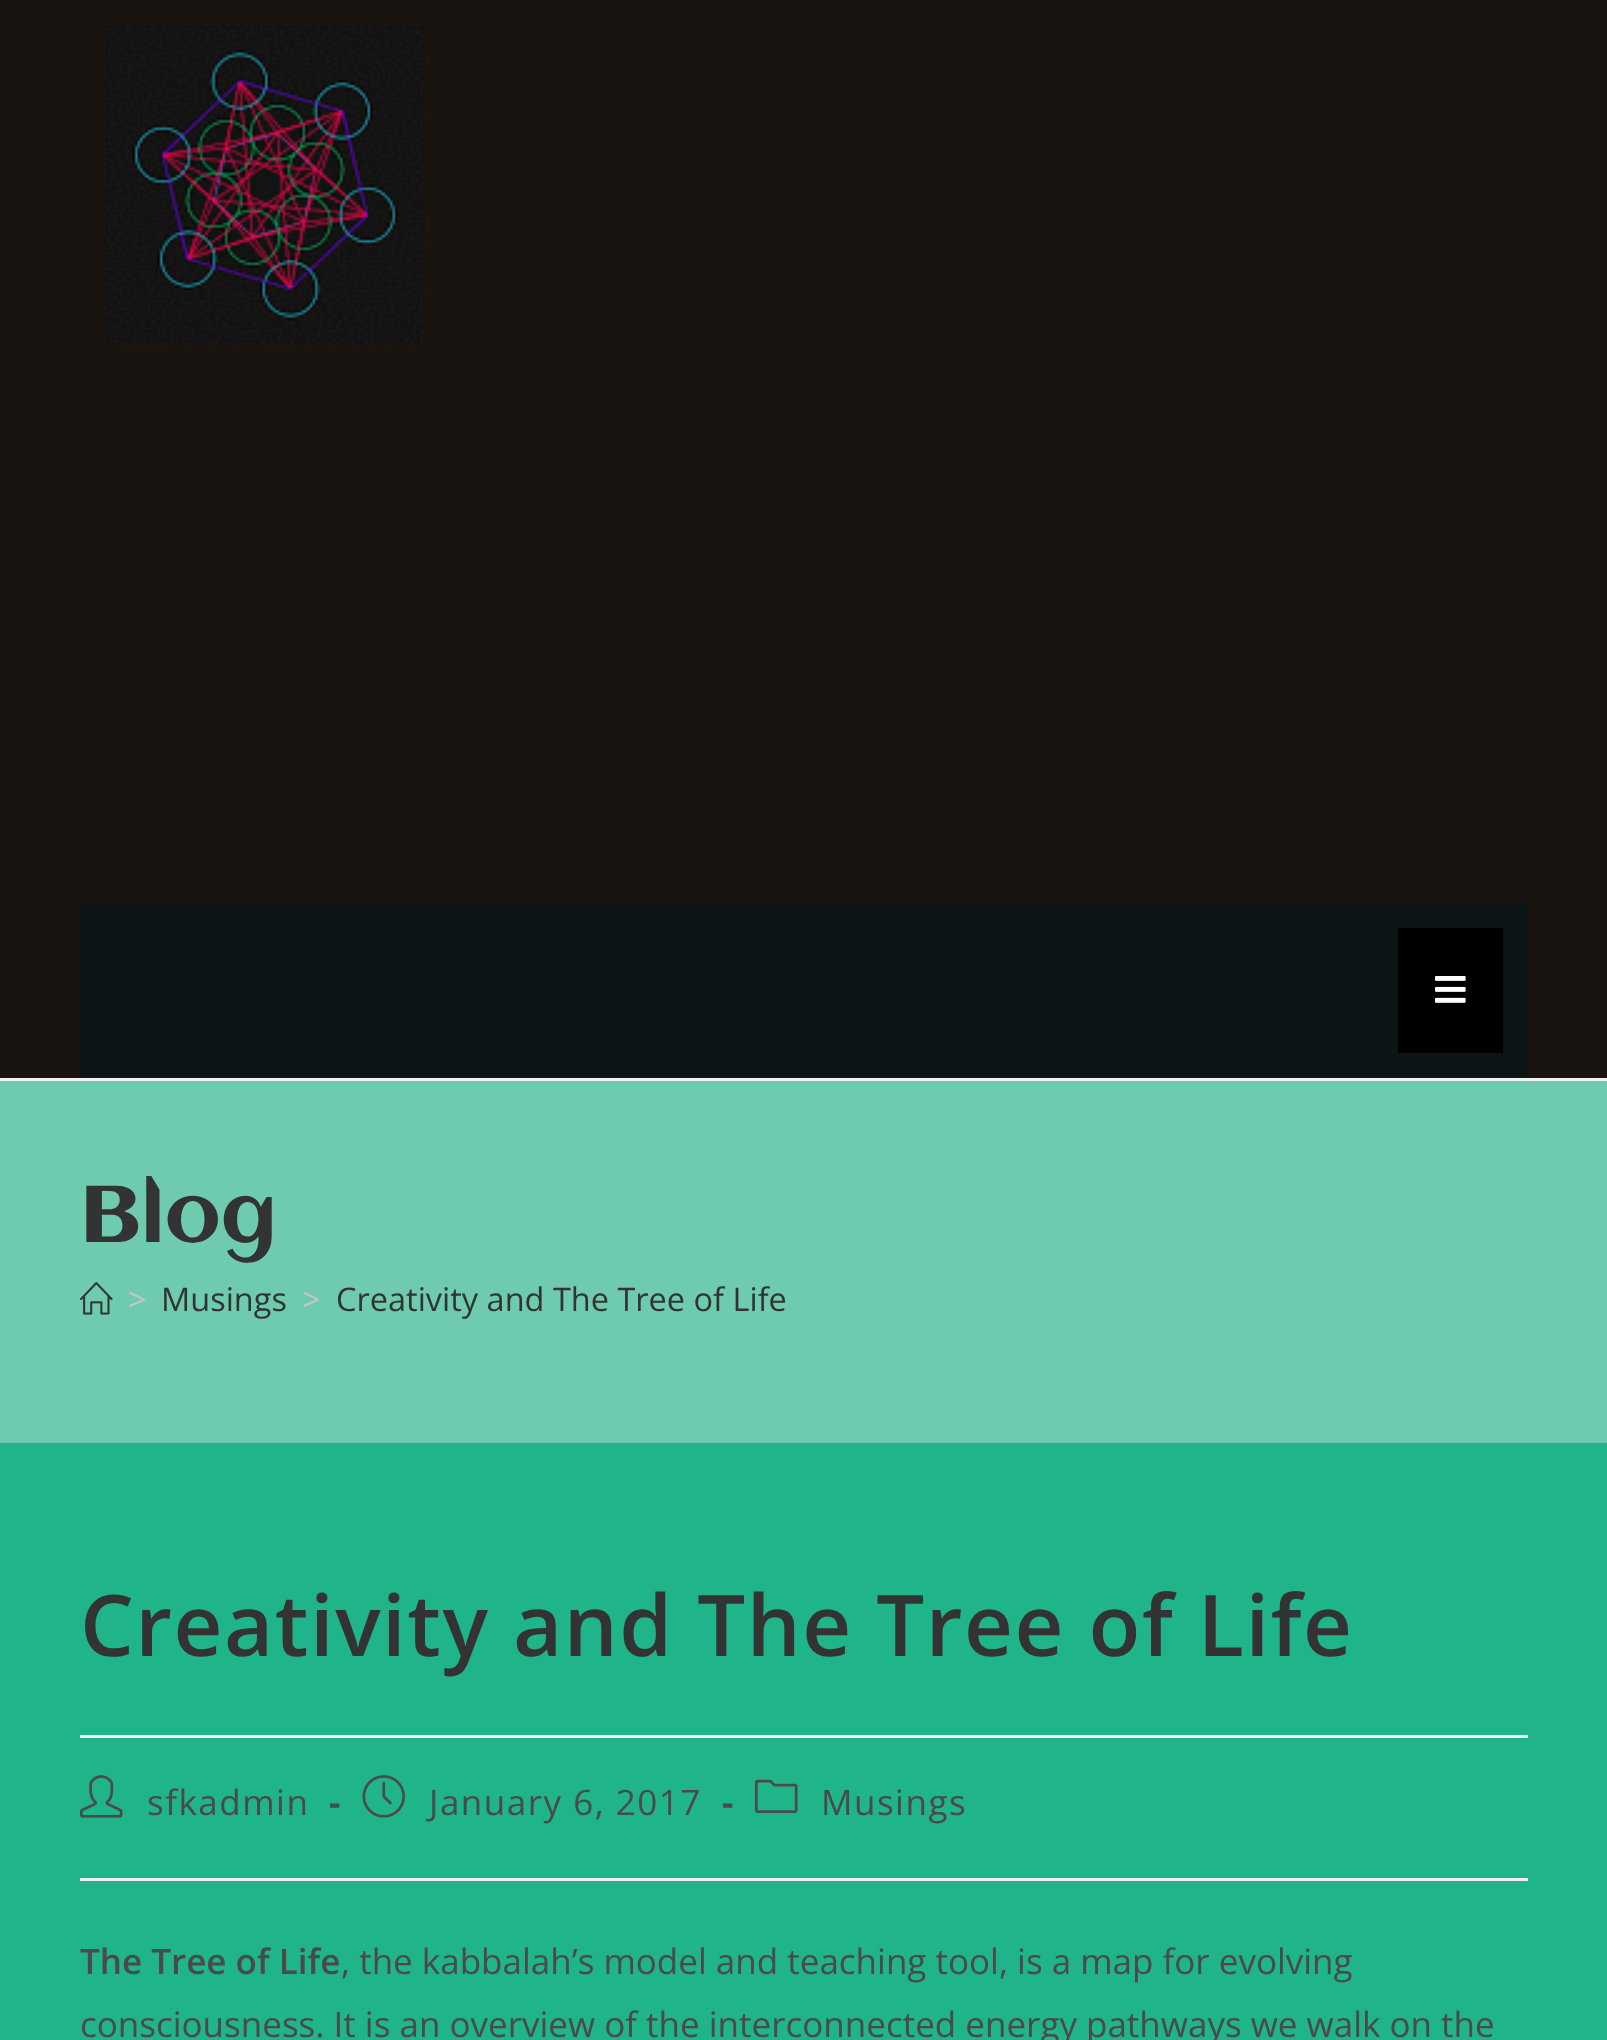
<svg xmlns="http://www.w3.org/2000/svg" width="1607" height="2040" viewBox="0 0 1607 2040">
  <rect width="100%" height="100%" fill="#1fb489"/>
  <rect x="0" y="0" width="1607" height="1078" fill="#191410"/>
  <rect x="0" y="1078" width="1607" height="3" fill="#f1f1f1"/>
  <image x="105" y="25" width="320" height="320" href="img1.png"/>
  <rect x="80" y="903" width="1448" height="175" fill="#0d1416"/>
  <rect x="1398" y="928" width="105" height="125" fill="#000000"/>
  <image x="1435" y="976" width="31" height="27" href="img2.png"/>
  <rect x="0" y="1081" width="1607" height="362" fill="#6ecbb0"/>
  <text x="80" y="1242" font-family="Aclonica" font-size="80" fill="#333333">Blog</text>
  <image x="80" y="1282" width="33" height="33" href="img3.png"/>
  <text x="128" y="1311" font-family="Open Sans" font-size="32.5" fill="#c6c6c6">&gt;</text>
  <text x="161" y="1311" font-family="Open Sans" font-size="32.5" fill="#333333">Musings</text>
  <text x="302" y="1311" font-family="Open Sans" font-size="32.5" fill="#c6c6c6">&gt;</text>
  <text x="336" y="1311" font-family="Open Sans" font-size="32.5" fill="#333333">Creativity and The Tree of Life</text>
  <rect x="80" y="1735" width="1448" height="3" fill="#f1f1f1"/>
  <text x="80" y="1656" font-family="Open Sans" font-size="85" font-weight="600" letter-spacing="1.5" fill="#333333">Creativity and The Tree of Life</text>
  <rect x="80" y="1878" width="1448" height="3" fill="#f1f1f1"/>
  <image x="80" y="1775" width="43" height="43" href="img4.png"/>
  <text x="147" y="1815" font-family="Open Sans" font-size="35" letter-spacing="1.5" fill="#4a4a4a">sfkadmin</text>
  <text x="329" y="1815" font-family="Open Sans" font-size="35" font-weight="bold" letter-spacing="1.5" fill="#4a4a4a">-</text>
  <image x="362" y="1775" width="43" height="43" href="img5.png"/>
  <text x="429" y="1815" font-family="Open Sans" font-size="35" letter-spacing="1.5" fill="#4a4a4a">January 6, 2017</text>
  <text x="722" y="1815" font-family="Open Sans" font-size="35" font-weight="bold" letter-spacing="1.5" fill="#4a4a4a">-</text>
  <image x="755" y="1779" width="43" height="34" href="img6.png"/>
  <text x="821" y="1815" font-family="Open Sans" font-size="35" letter-spacing="1.5" fill="#4a4a4a">Musings</text>
  <text x="80" y="1974" font-family="Open Sans" font-size="35" font-weight="600" fill="#4a4a4a">The Tree of Life</text>
  <text x="341" y="1974" font-family="Open Sans" font-size="35" fill="#4a4a4a">, the kabbalah’s model and teaching tool, is a map for evolving</text>
  <text x="80" y="2037" font-family="Open Sans" font-size="35" fill="#4a4a4a">consciousness. It is an overview of the interconnected energy pathways we walk on the</text>
</svg>
